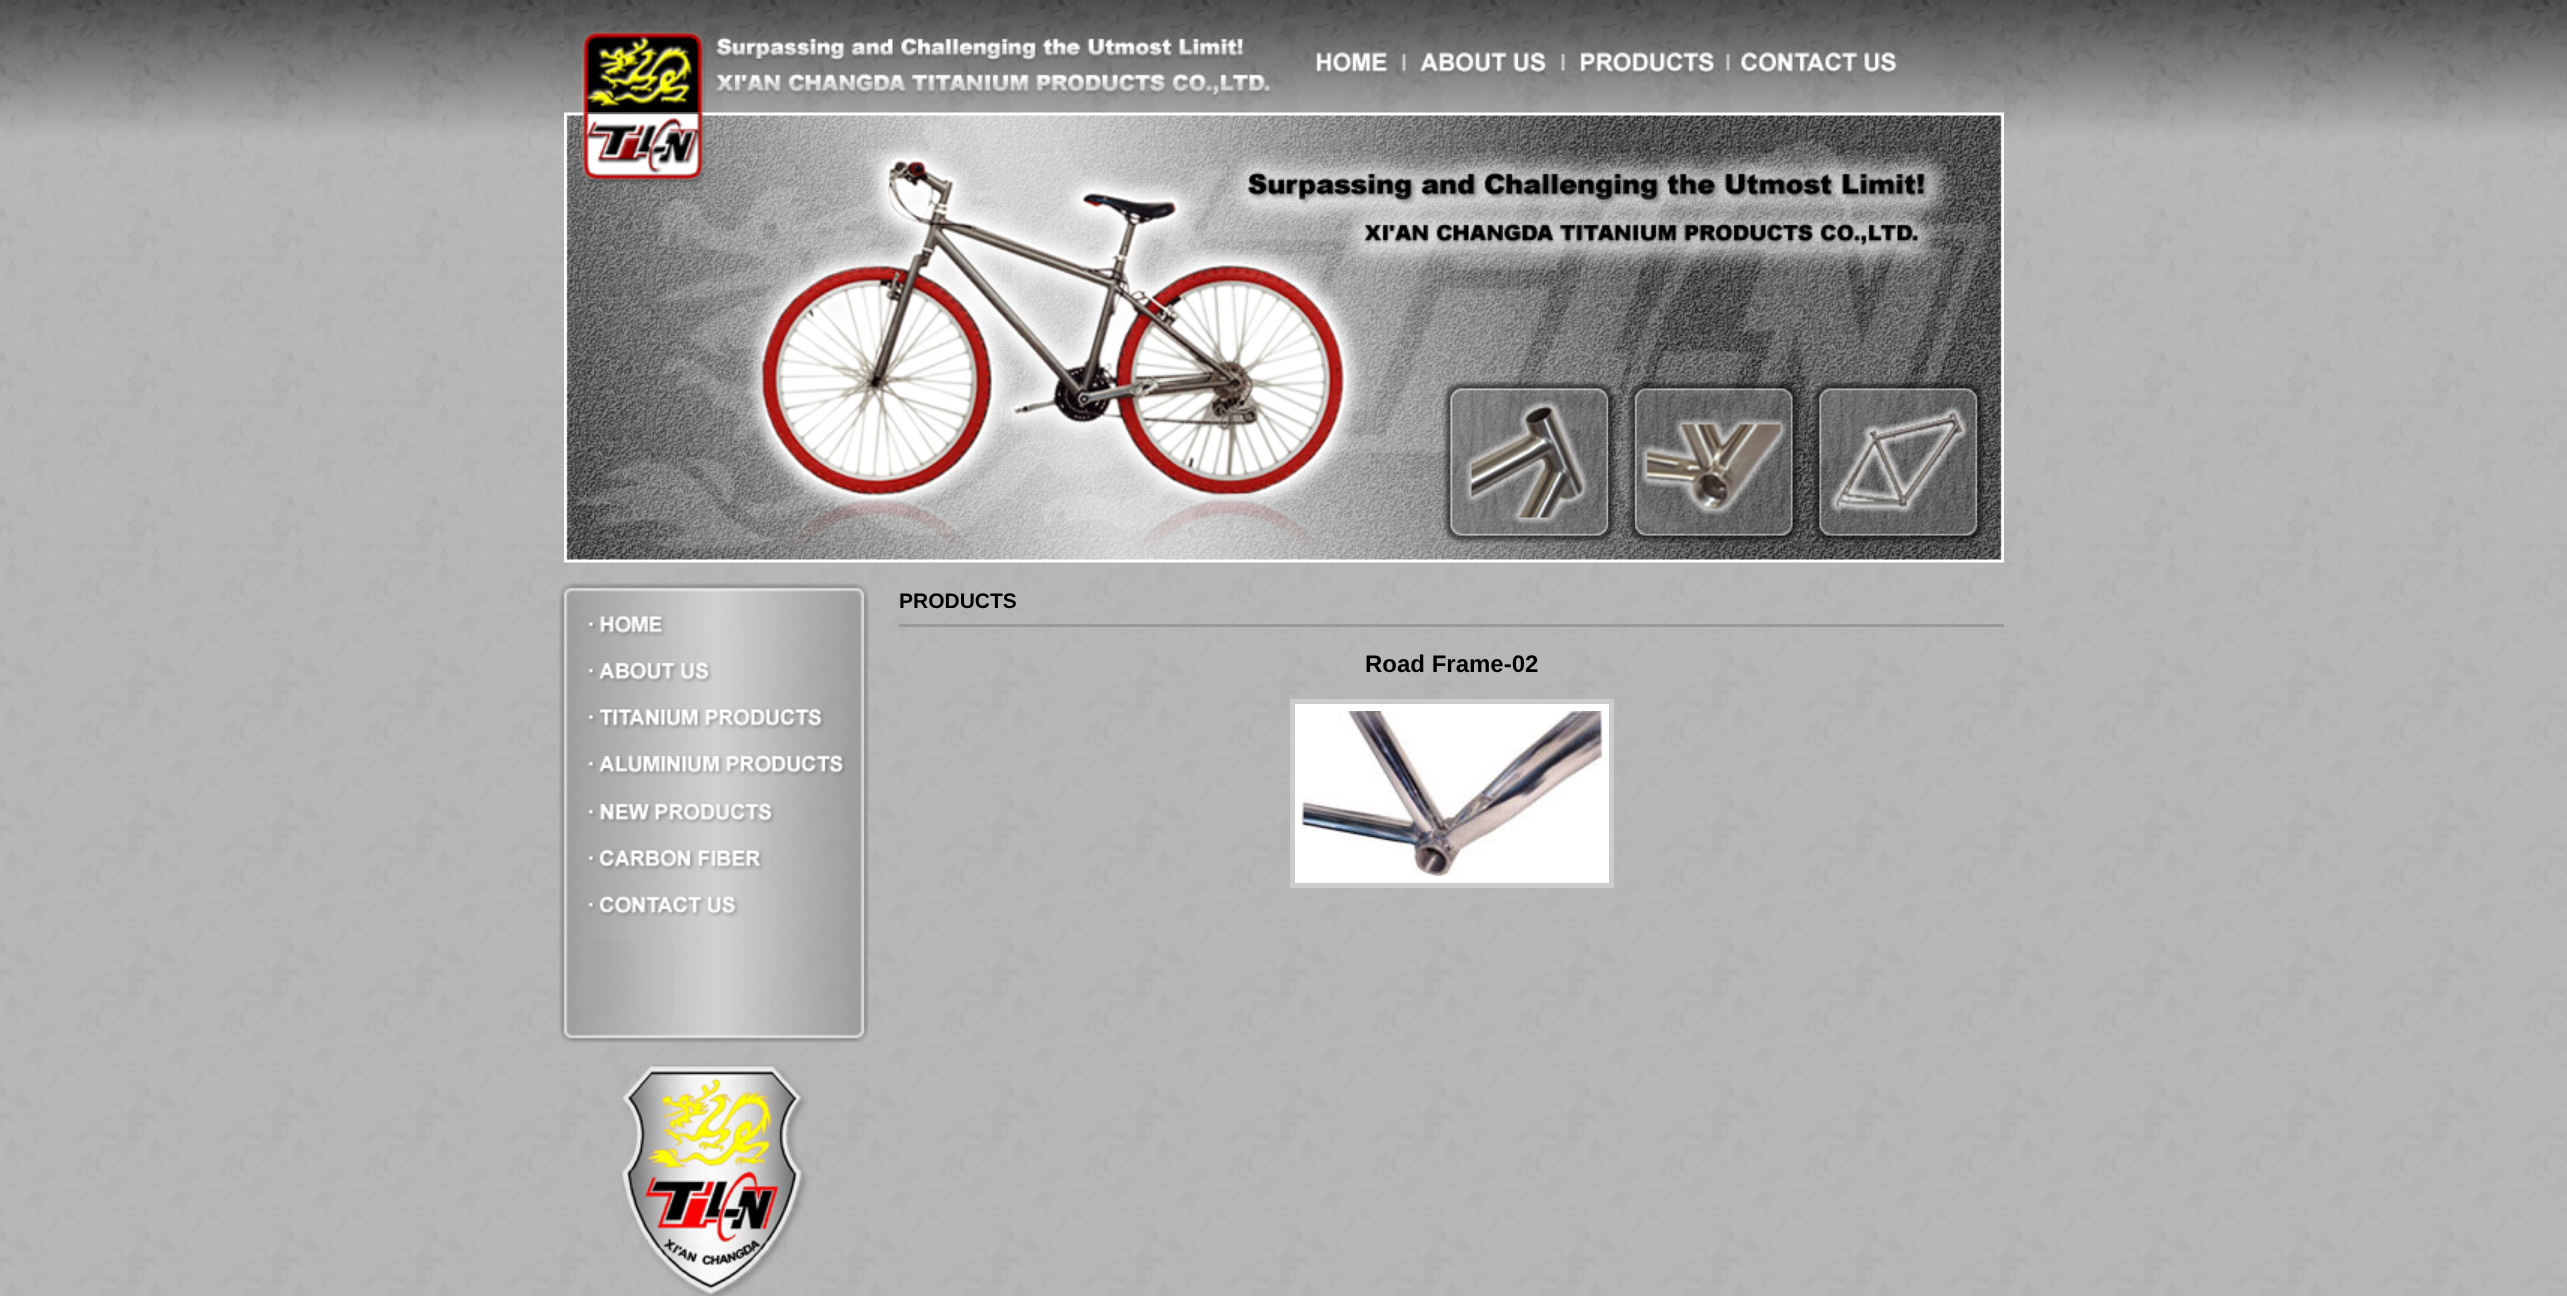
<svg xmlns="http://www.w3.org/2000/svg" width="2567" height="1296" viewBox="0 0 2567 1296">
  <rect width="100%" height="100%" fill="#ffffff"/>
  <image x="0" y="562" width="2567" height="734" href="img1.png"/>
  <image x="0" y="0" width="2567" height="562" href="img2.png"/>
  <image x="564" y="0" width="1440" height="113" href="img3.png"/>
  <image x="564" y="112" width="1440" height="451" href="img4.png"/>
  <image x="559" y="583" width="310" height="460" href="img5.png"/>
  <image x="621" y="1064" width="188" height="232" href="img6.png"/>
  <text x="899" y="608" font-family="Liberation Sans" font-size="21" font-weight="bold" fill="#000000">PRODUCTS</text>
  <rect x="899" y="624" width="1105" height="3" fill="#999999"/>
  <text x="1365" y="672" font-family="Liberation Sans" font-size="24" font-weight="bold" fill="#000000">Road Frame-02</text>
  <rect x="1292.5" y="701.5" width="319" height="184" fill="#ffffff" stroke="#cccccc" stroke-width="5"/>
  <image x="1302" y="711" width="300" height="165" href="img7.png"/>
</svg>
